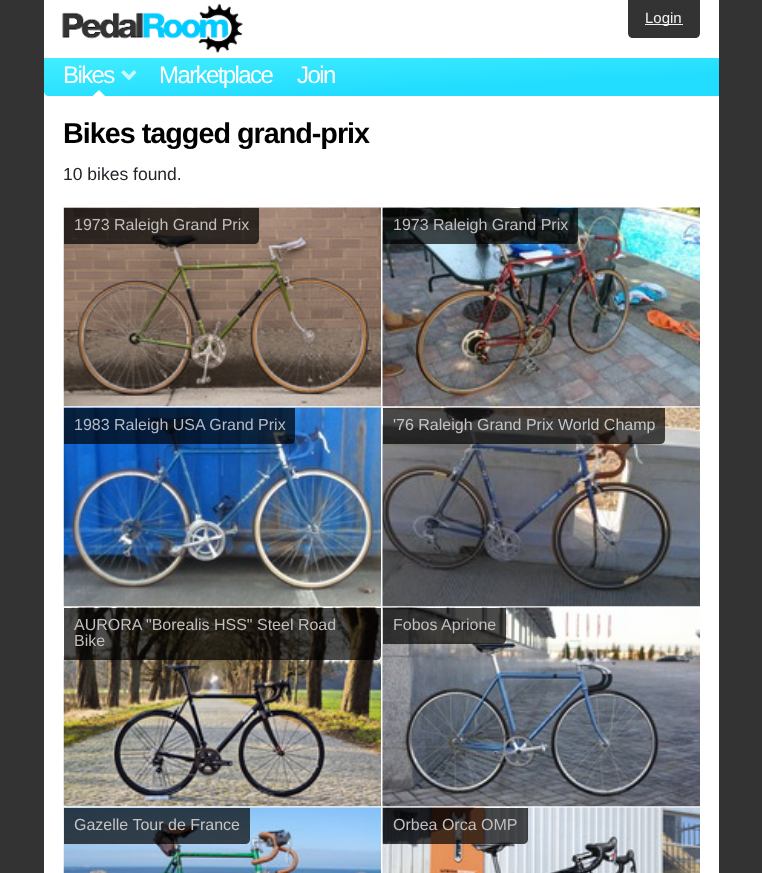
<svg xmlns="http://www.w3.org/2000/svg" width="762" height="873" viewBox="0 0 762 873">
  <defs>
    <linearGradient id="g1" gradientUnits="userSpaceOnUse" x1="379" y1="38" x2="383" y2="115"><stop offset="0" stop-color="#44eeff"/><stop offset="0.7" stop-color="#22ddff"/></linearGradient>
  </defs>
  <rect width="100%" height="100%" fill="#333333"/>
  <rect x="44" y="0" width="675" height="873" fill="#ffffff"/>
  <image x="62" y="3" width="181" height="50" href="img1.png"/>
  <path d="M628 0H700V33C700 36 698 38 695 38H633C630 38 628 36 628 33Z" fill="#333333"/>
  <rect x="645" y="24" width="38" height="1" fill="#f2f2f2"/>
  <text x="645" y="23" font-family="Liberation Sans" font-size="15" fill="#f2f2f2">Login</text>
  <path d="M44 58H719V96H49C46 96 44 94 44 91Z" fill="url(#g1)"/>
  <text x="63" y="83" font-family="Liberation Sans" font-size="24" letter-spacing="-1.6" fill="#ffffff">Bikes</text>
  <path d="M136.5 72.5L129 80.5V75L134 70ZM129 80.5L121 72.5L123.5 70L129 75Z" fill="#ffffff" fill-opacity="0.7"/>
  <path d="M105 96H92.5L99 90Z" fill="#ffffff"/>
  <text x="159" y="83" font-family="Liberation Sans" font-size="24" letter-spacing="-1.6" fill="#ffffff">Marketplace</text>
  <text x="297" y="83" font-family="Liberation Sans" font-size="24" letter-spacing="-1.6" fill="#ffffff">Join</text>
  <text x="63" y="143" font-family="Liberation Sans" font-size="28.75" font-weight="bold" letter-spacing="-1" fill="#000000">Bikes tagged grand-prix</text>
  <text x="63" y="180" font-family="Liberation Sans" font-size="17.5" fill="#212529">10 bikes found.</text>
  <image x="63" y="207" width="319" height="200" href="img2.png"/>
  <path d="M64 208H259V239C259 242 257 244 254 244H64Z" fill="#000000" fill-opacity="0.7"/>
  <text x="74" y="230" font-family="Liberation Sans" font-size="16" fill="#c1bebd">1973 Raleigh Grand Prix</text>
  <rect x="381" y="208" width="1" height="200" fill="#ffffff"/>
  <image x="382" y="207" width="318" height="200" href="img3.png"/>
  <path d="M383 208H578V239C578 242 576 244 573 244H383Z" fill="#000000" fill-opacity="0.7"/>
  <text x="393" y="230" font-family="Liberation Sans" font-size="16" fill="#c1bebd">1973 Raleigh Grand Prix</text>
  <image x="63" y="407" width="319" height="200" href="img4.png"/>
  <path d="M64 408H295V439C295 442 293 444 290 444H64Z" fill="#000000" fill-opacity="0.7"/>
  <text x="74" y="430" font-family="Liberation Sans" font-size="16" fill="#b5bbc4">1983 Raleigh USA Grand Prix</text>
  <rect x="381" y="408" width="1" height="200" fill="#ffffff"/>
  <image x="382" y="407" width="318" height="200" href="img5.png"/>
  <path d="M383 408H665V439C665 442 663 444 660 444H383Z" fill="#000000" fill-opacity="0.7"/>
  <text x="393" y="430" font-family="Liberation Sans" font-size="16" fill="#c5c4c4">'76 Raleigh Grand Prix World Champ</text>
  <image x="63" y="607" width="319" height="200" href="img6.png"/>
  <path d="M64 608H381V655C381 658 379 660 376 660H64Z" fill="#000000" fill-opacity="0.7"/>
  <text x="74" y="630" font-family="Liberation Sans" font-size="16" fill="#c1bebd">AURORA "Borealis HSS" Steel Road</text>
  <text x="74" y="646" font-family="Liberation Sans" font-size="16" fill="#c1bebd">Bike</text>
  <rect x="381" y="608" width="1" height="200" fill="#ffffff"/>
  <image x="382" y="607" width="318" height="200" href="img7.png"/>
  <path d="M383 608H506V639C506 642 504 644 501 644H383Z" fill="#000000" fill-opacity="0.7"/>
  <text x="393" y="630" font-family="Liberation Sans" font-size="16" fill="#c1bebd">Fobos Aprione</text>
  <image x="63" y="807" width="319" height="66" href="img8.png"/>
  <path d="M64 808H250V839C250 842 248 844 245 844H64Z" fill="#000000" fill-opacity="0.7"/>
  <text x="74" y="830" font-family="Liberation Sans" font-size="16" fill="#c5c4c4">Gazelle Tour de France</text>
  <rect x="381" y="808" width="1" height="65" fill="#ffffff"/>
  <image x="382" y="807" width="318" height="66" href="img9.png"/>
  <path d="M383 808H528V839C528 842 526 844 523 844H383Z" fill="#000000" fill-opacity="0.7"/>
  <text x="393" y="830" font-family="Liberation Sans" font-size="16" fill="#c1bebd">Orbea Orca OMP</text>
</svg>
